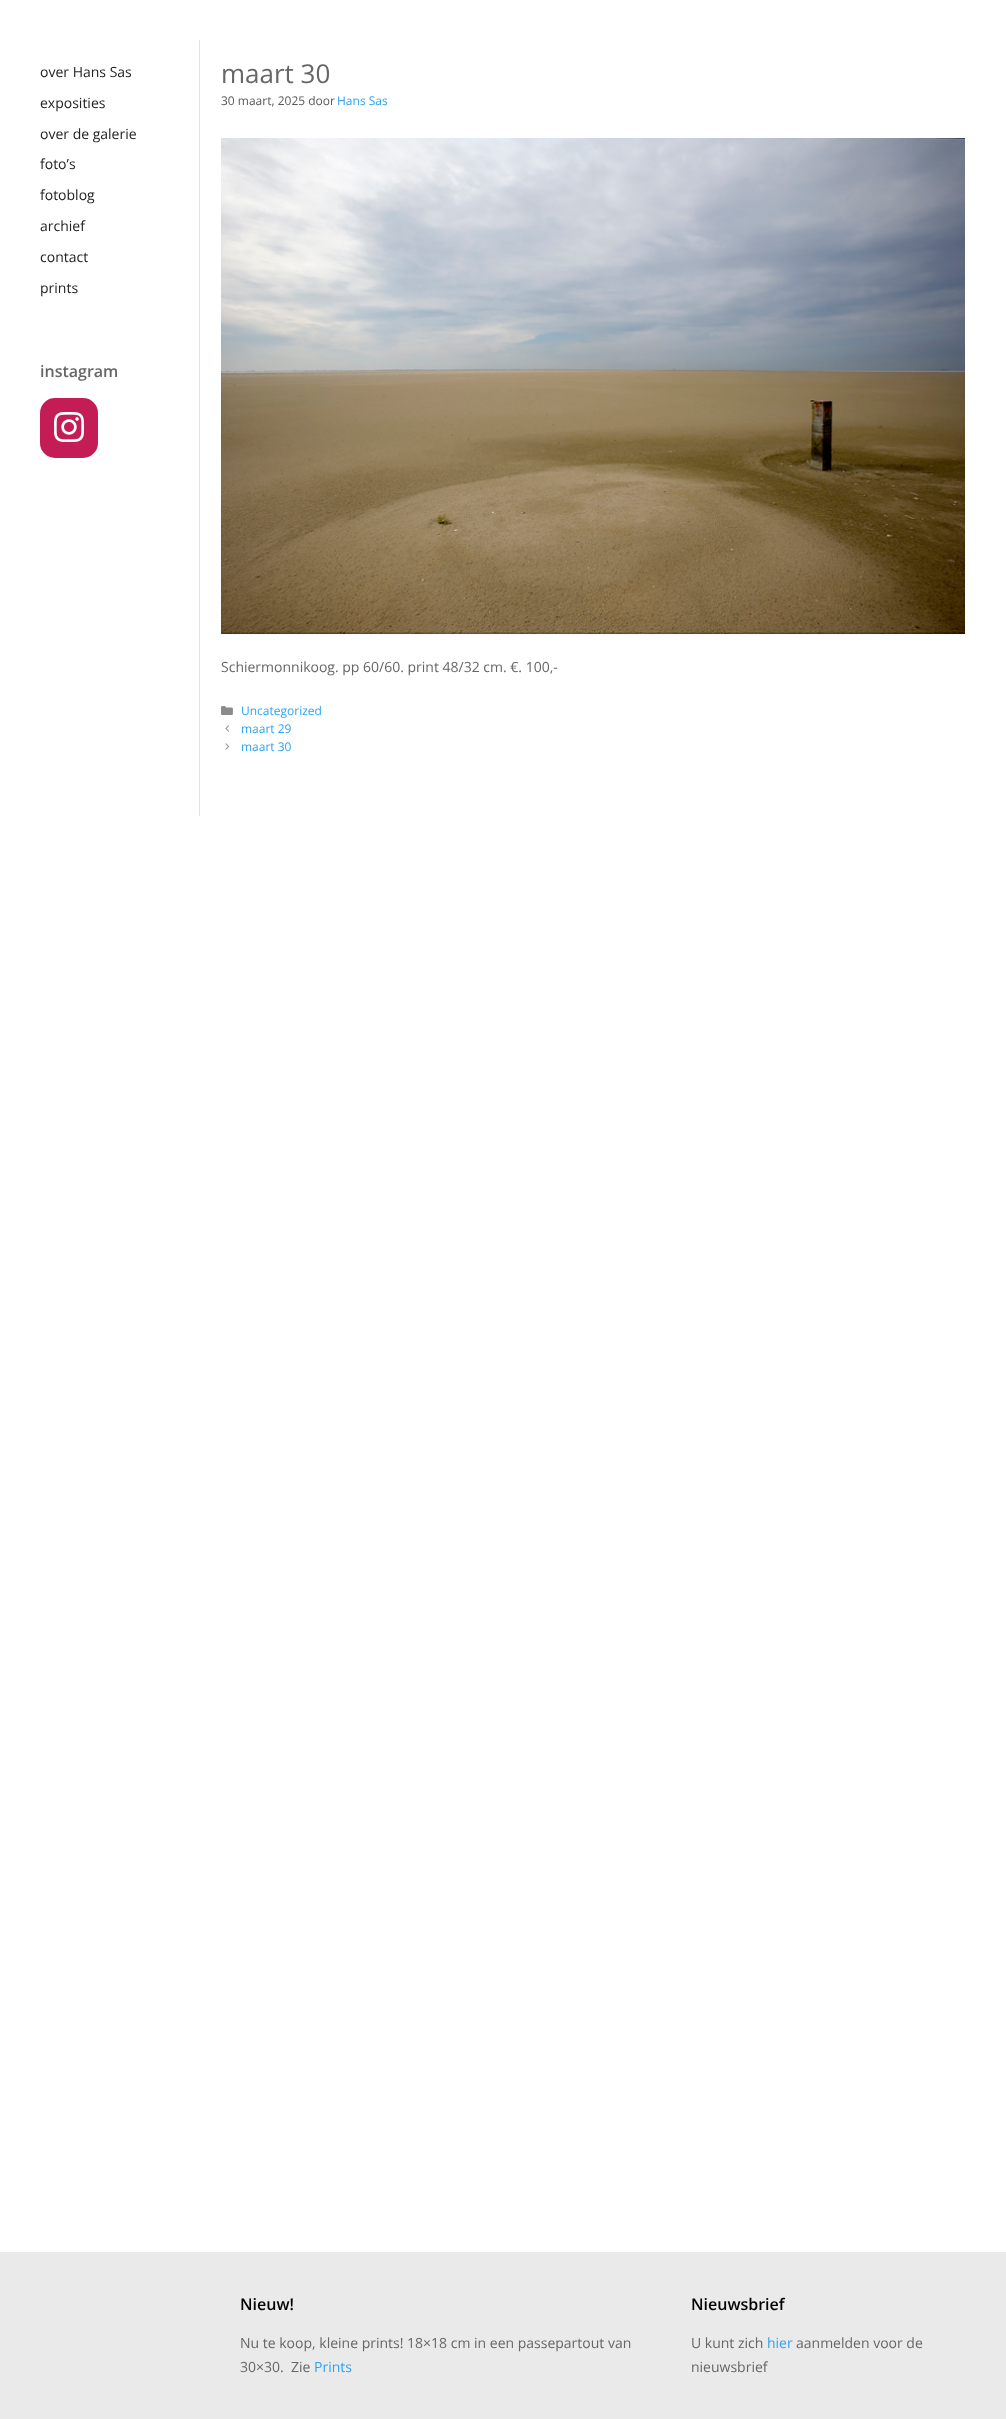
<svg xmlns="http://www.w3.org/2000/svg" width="1006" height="2419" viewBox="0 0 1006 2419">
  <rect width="100%" height="100%" fill="#ffffff"/>
  <rect x="199" y="40" width="1" height="776" fill="#e2e2e2"/>
  <text x="40" y="77" font-family="Open Sans" font-size="14" fill="#222222">over Hans Sas</text>
  <text x="40" y="108" font-family="Open Sans" font-size="14" fill="#222222">exposities</text>
  <text x="40" y="139" font-family="Open Sans" font-size="14" fill="#222222">over de galerie</text>
  <text x="40" y="169" font-family="Open Sans" font-size="14" fill="#222222">foto’s</text>
  <text x="40" y="200" font-family="Open Sans" font-size="14" fill="#222222">fotoblog</text>
  <text x="40" y="231" font-family="Open Sans" font-size="14" fill="#222222">archief</text>
  <text x="40" y="262" font-family="Open Sans" font-size="14" fill="#222222">contact</text>
  <text x="40" y="293" font-family="Open Sans" font-size="14" fill="#222222">prints</text>
  <text x="40" y="377" font-family="Open Sans" font-size="16" font-weight="600" fill="#666666">instagram</text>
  <rect x="40" y="398" width="58" height="60" rx="15" fill="#c41d55"/>
  <image x="54" y="412" width="30" height="30" href="img1.png"/>
  <text x="221" y="83" font-family="Open Sans" font-size="26" fill="#666666">maart 30</text>
  <text x="221" y="105" font-family="Open Sans" font-size="12" fill="#595959">30 maart, 2025 door</text>
  <text x="337" y="105" font-family="Open Sans" font-size="12" fill="#2ea3f2">Hans Sas</text>
  <image x="221" y="138" width="744" height="496" href="img2.png"/>
  <text x="221" y="672" font-family="Open Sans" font-size="14" fill="#666666">Schiermonnikoog. pp 60/60. print 48/32 cm. €. 100,-</text>
  <image x="221" y="706" width="12" height="9" href="img3.png"/>
  <text x="241" y="715" font-family="Open Sans" font-size="12" fill="#2ea3f2">Uncategorized</text>
  <image x="225" y="725" width="5" height="7" href="img4.png"/>
  <text x="241" y="733" font-family="Open Sans" font-size="12" fill="#2ea3f2">maart 29</text>
  <image x="225" y="743" width="5" height="7" href="img5.png"/>
  <text x="241" y="751" font-family="Open Sans" font-size="12" fill="#2ea3f2">maart 30</text>
  <rect x="0" y="2252" width="1006" height="167" fill="#eaeaea"/>
  <text x="240" y="2310" font-family="Open Sans" font-size="16" font-weight="600" fill="#000000">Nieuw!</text>
  <text x="240" y="2348" font-family="Open Sans" font-size="14" fill="#666666">Nu te koop, kleine prints! 18×18 cm in een passepartout van</text>
  <text x="240" y="2372" font-family="Open Sans" font-size="14" fill="#666666" xml:space="preserve">30×30.  Zie</text>
  <text x="314" y="2372" font-family="Open Sans" font-size="14" fill="#2ea3f2">Prints</text>
  <text x="691" y="2310" font-family="Open Sans" font-size="16" font-weight="600" fill="#000000">Nieuwsbrief</text>
  <text x="691" y="2348" font-family="Open Sans" font-size="14" fill="#666666">U kunt zich</text>
  <text x="767" y="2348" font-family="Open Sans" font-size="14" fill="#2ea3f2">hier</text>
  <text x="796" y="2348" font-family="Open Sans" font-size="14" fill="#666666">aanmelden voor de</text>
  <text x="691" y="2372" font-family="Open Sans" font-size="14" fill="#666666">nieuwsbrief</text>
</svg>
